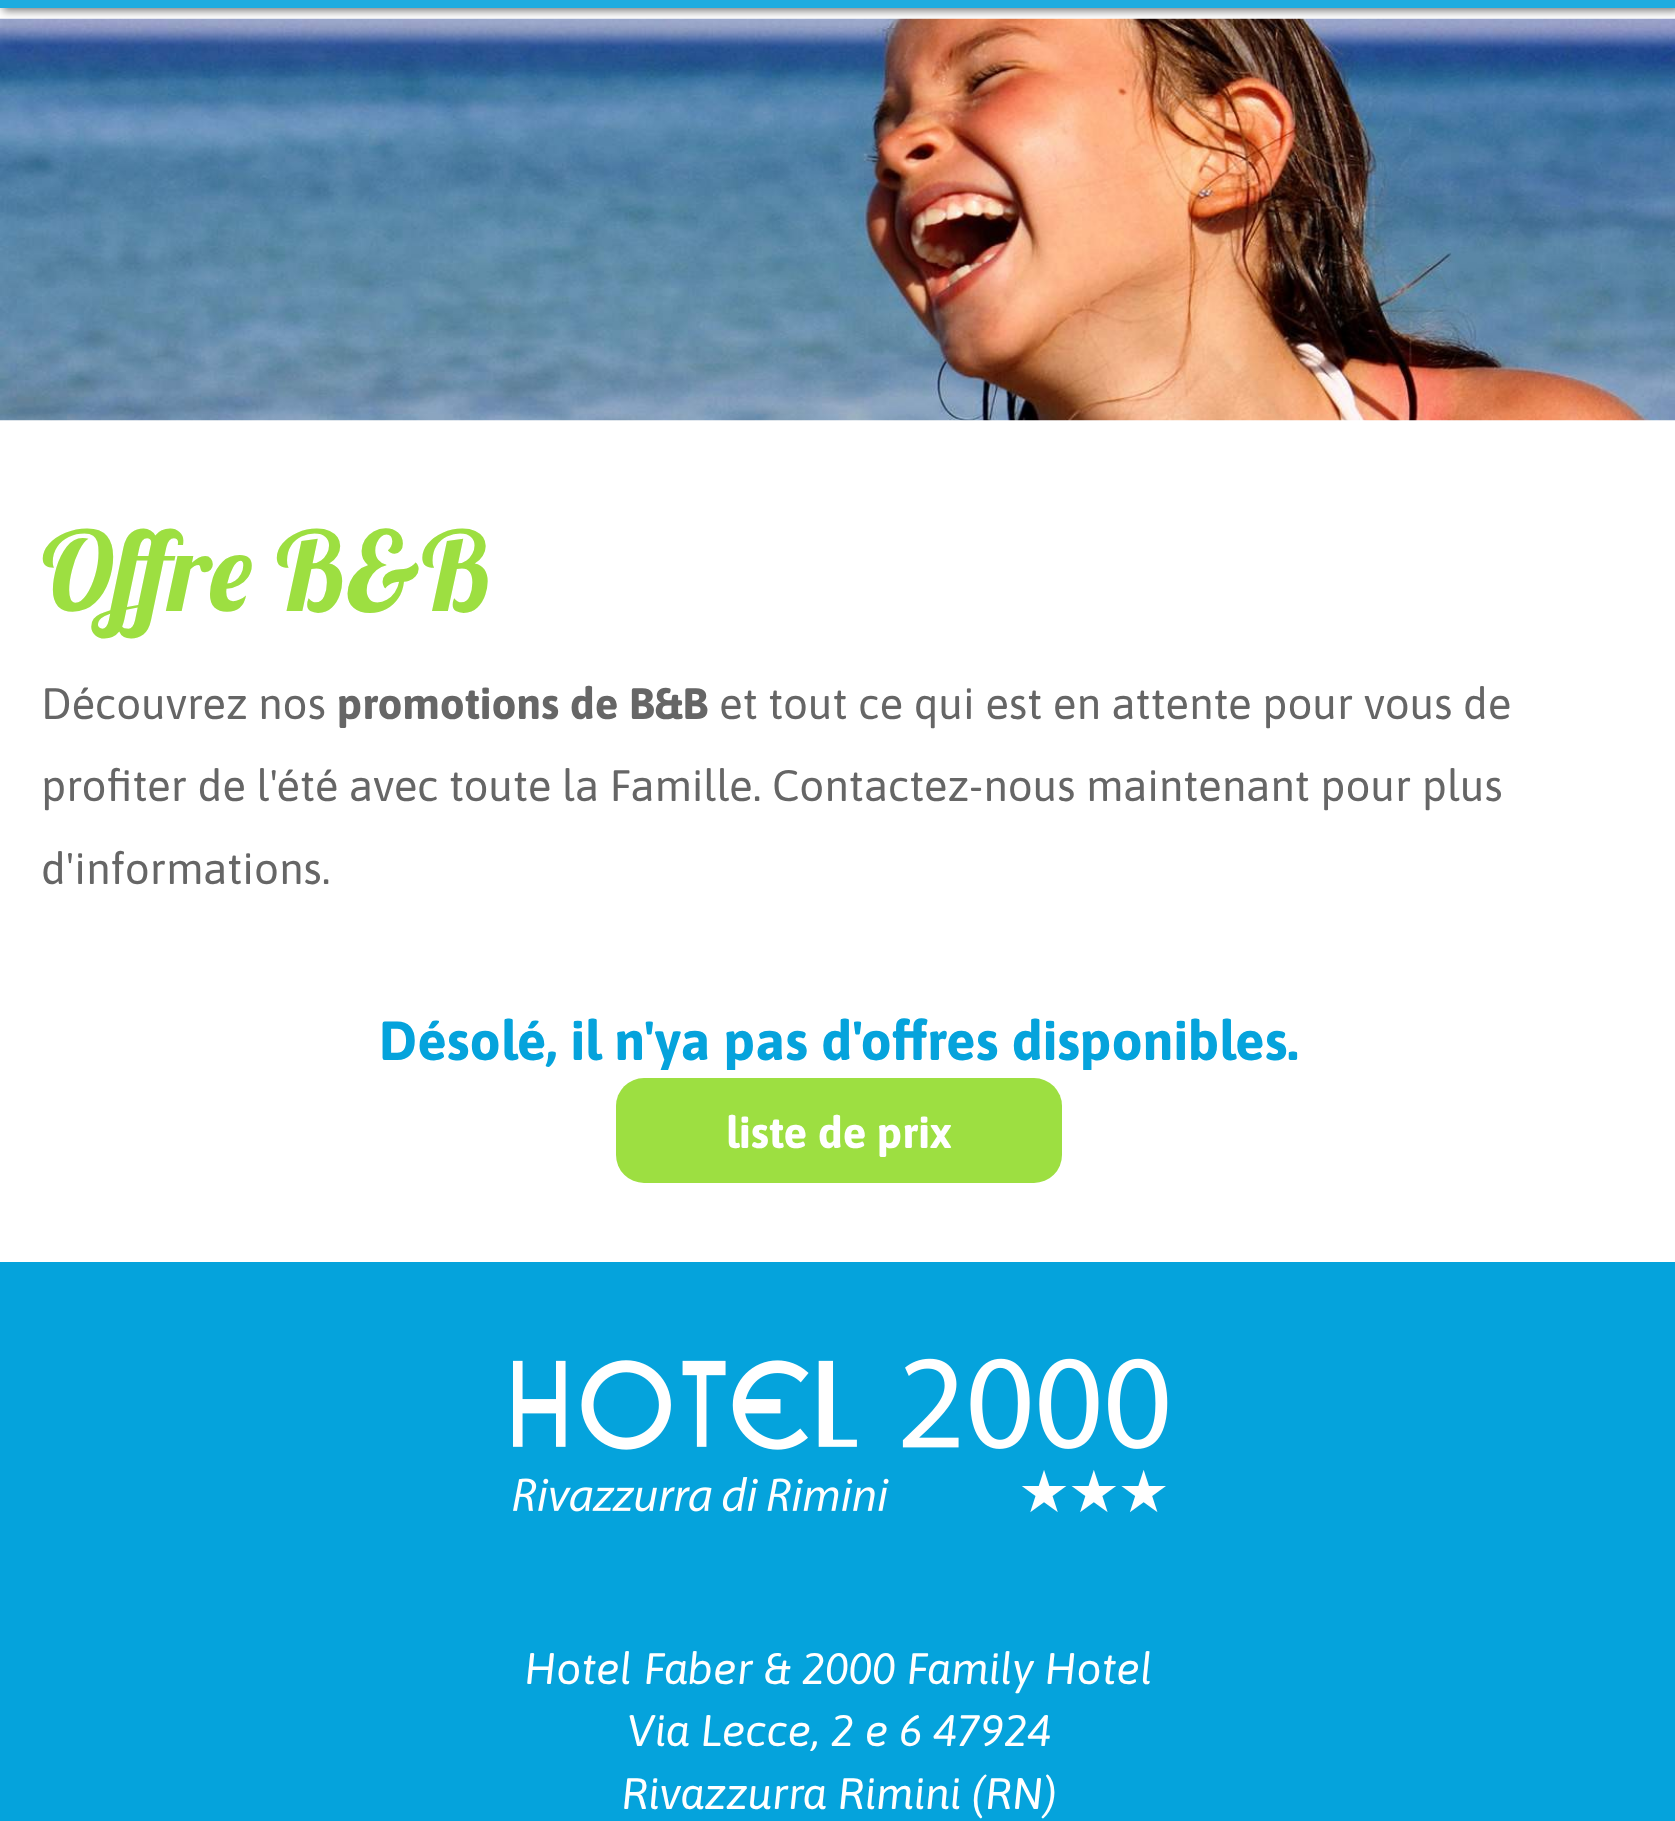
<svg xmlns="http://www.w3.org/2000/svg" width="1675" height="1821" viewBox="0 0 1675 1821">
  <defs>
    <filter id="blur1" x="-50%" y="-200%" width="200%" height="500%"><feGaussianBlur stdDeviation="4"/></filter>
    <clipPath id="clip1"><rect x="41" y="1009" width="1595" height="61"/></clipPath>
  </defs>
  <rect width="100%" height="100%" fill="#ffffff"/>
  <rect x="3" y="-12" width="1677" height="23" fill="#000000" fill-opacity="0.5" filter="url(#blur1)"/>
  <rect x="0" y="0" width="1675" height="8" fill="#1eace0"/>
  <image x="0" y="18" width="1675" height="403" href="img1.png"/>
  <text x="41" y="611" font-family="Lobster" font-size="110" fill="#9ddf41">Offre B&amp;B</text>
  <text x="41" y="719" font-family="Asap" font-size="44" fill="#666666">Découvrez nos</text>
  <text x="337" y="719" font-family="Asap" font-size="44" font-weight="bold" fill="#666666">promotions de B&amp;B</text>
  <text x="719" y="719" font-family="Asap" font-size="44" fill="#666666">et tout ce qui est en attente pour vous de</text>
  <text x="41" y="801" font-family="Asap" font-size="44" fill="#666666">profiter de l'été avec toute la Famille. Contactez-nous maintenant pour plus</text>
  <text x="41" y="884" font-family="Asap" font-size="44" fill="#666666">d'informations.</text>
  <g clip-path="url(#clip1)">
    <text x="379" y="1060" font-family="Asap" font-size="55" font-weight="bold" fill="#05a3dc">Désolé, il n'ya pas d'offres disponibles.</text>
  </g>
  <rect x="616" y="1078" width="446" height="105" rx="28" fill="#9ddf41"/>
  <text x="726" y="1148" font-family="Asap" font-size="44" font-weight="bold" fill="#ffffff">liste de prix</text>
  <rect x="0" y="1262" width="1675" height="559" fill="#05a3dc"/>
  <image x="513" y="1358" width="655" height="155" href="img2.png"/>
  <text x="524" y="1684" font-family="Asap" font-size="44" font-style="italic" fill="#ffffff">Hotel Faber &amp; 2000 Family Hotel</text>
  <text x="627" y="1746" font-family="Asap" font-size="44" font-style="italic" fill="#ffffff">Via Lecce, 2 e 6 47924</text>
  <text x="621" y="1809" font-family="Asap" font-size="44" font-style="italic" fill="#ffffff">Rivazzurra Rimini (RN)</text>
</svg>
